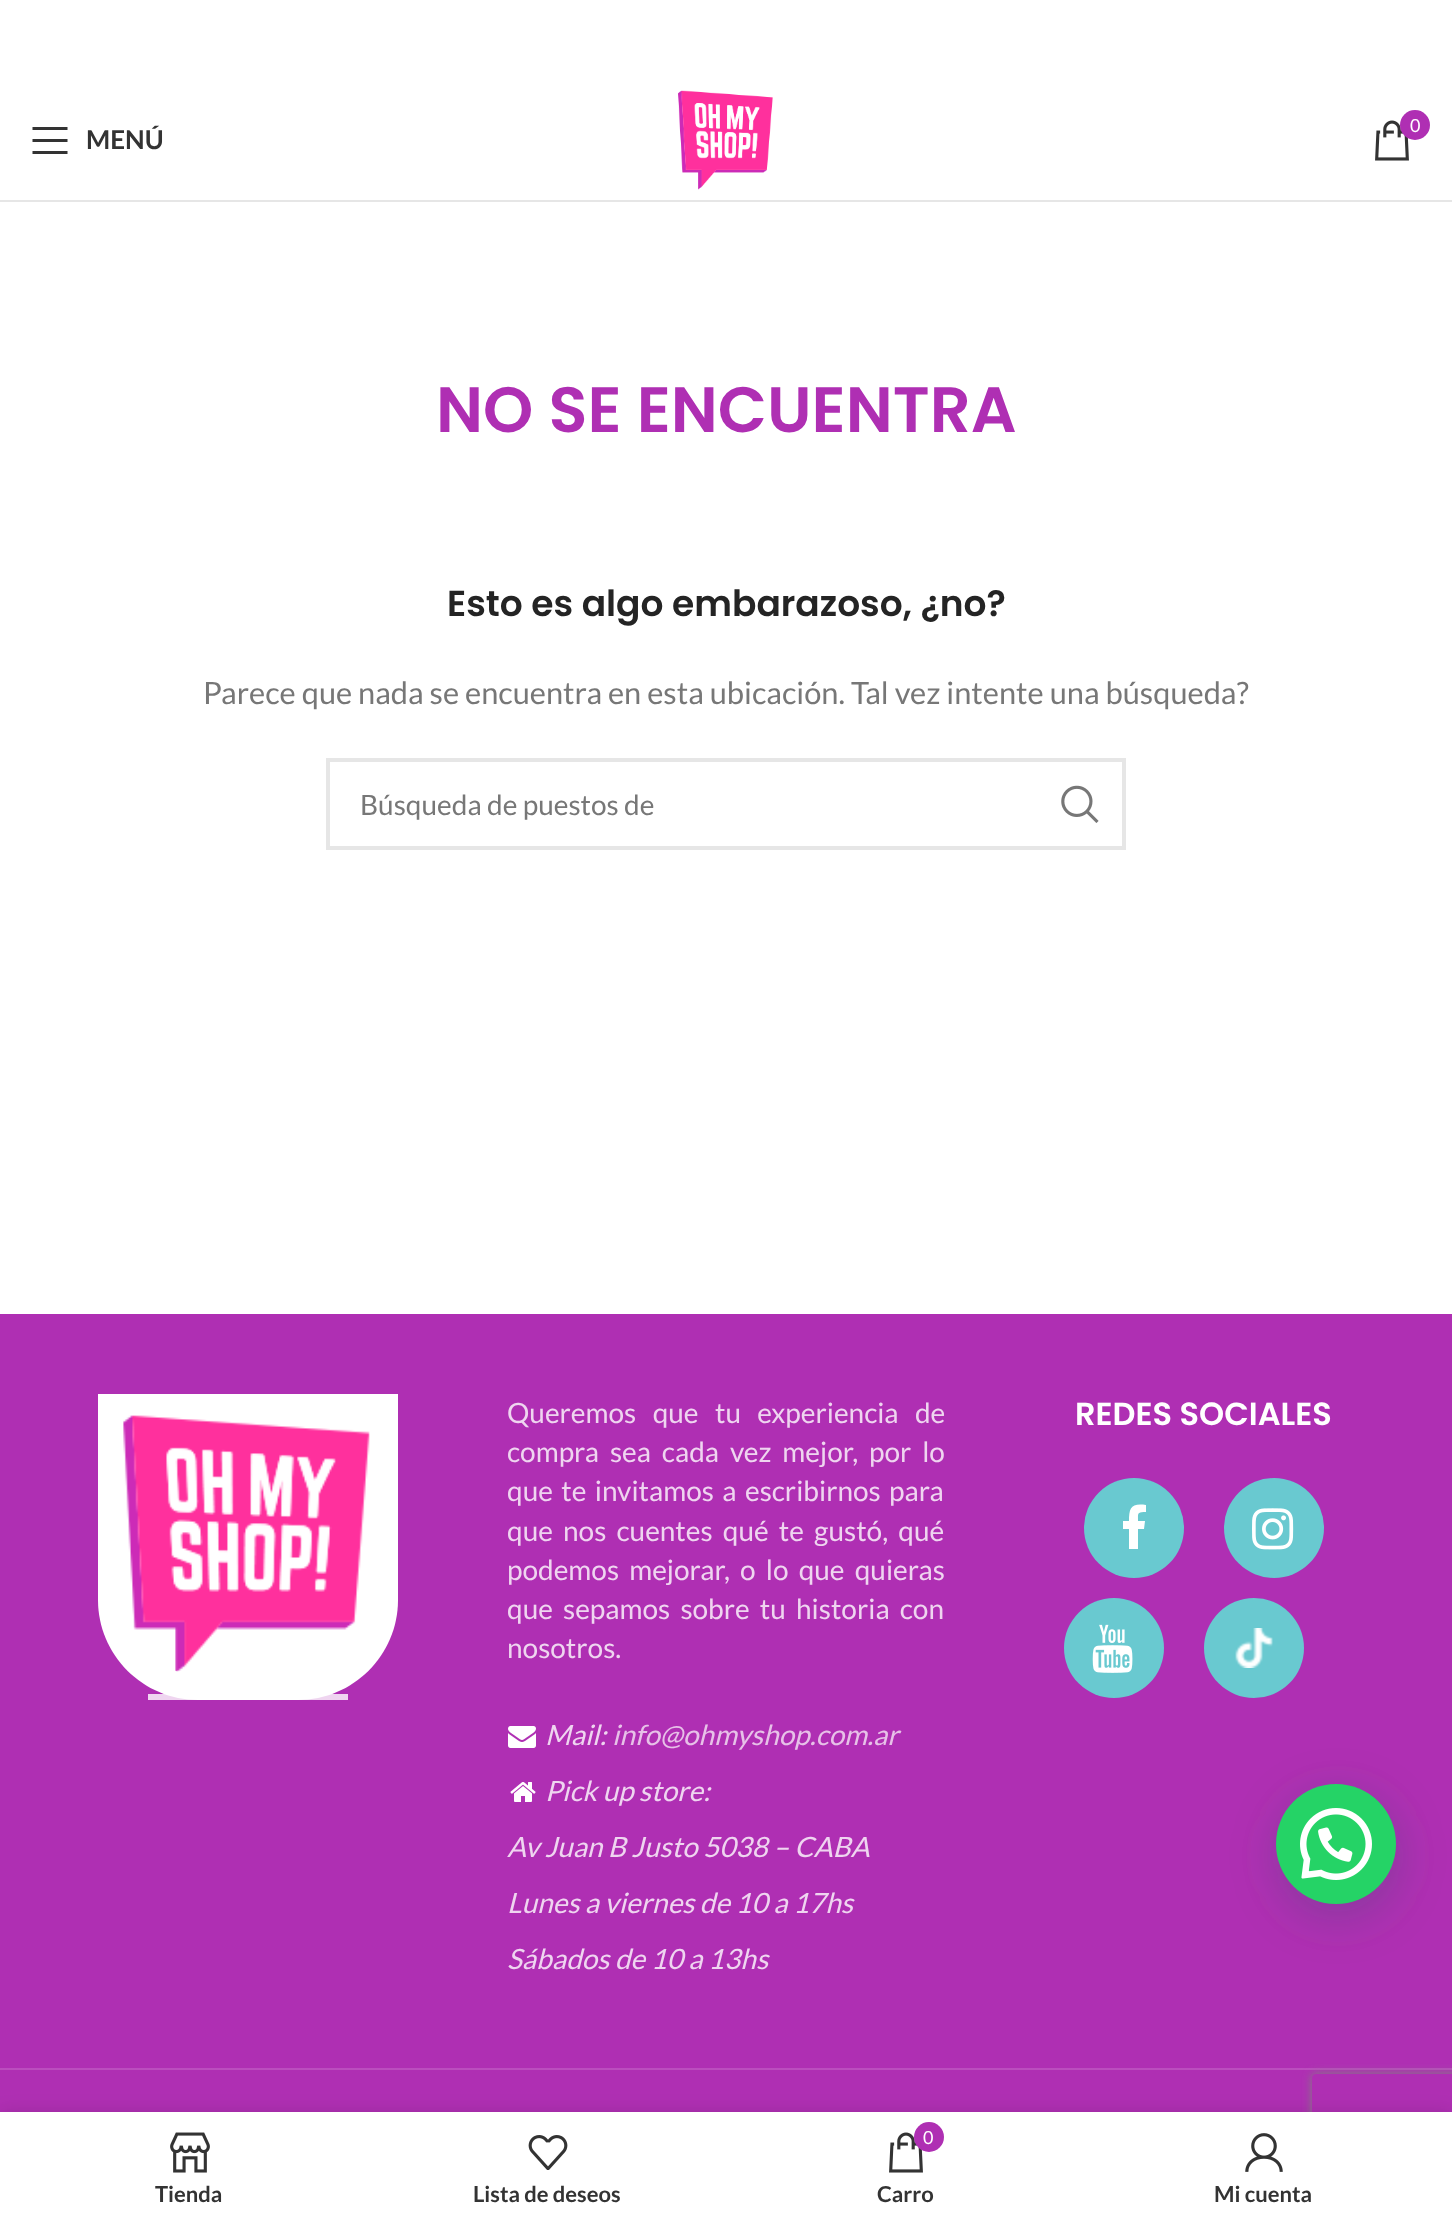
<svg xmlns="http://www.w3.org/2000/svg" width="1452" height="2221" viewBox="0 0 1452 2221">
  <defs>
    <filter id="blur1" x="-50%" y="-200%" width="200%" height="500%"><feGaussianBlur stdDeviation="24"/></filter>
    <filter id="blur2" x="-50%" y="-200%" width="200%" height="500%"><feGaussianBlur stdDeviation="9"/></filter>
    <clipPath id="clip1"><path d="M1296 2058H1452V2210H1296ZM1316 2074H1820C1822 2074 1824 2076 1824 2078V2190C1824 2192 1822 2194 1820 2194H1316C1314 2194 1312 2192 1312 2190V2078C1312 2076 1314 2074 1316 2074Z" clip-rule="evenodd"/></clipPath>
    <filter id="blur3" x="-50%" y="-200%" width="200%" height="500%"><feGaussianBlur stdDeviation="5"/></filter>
  </defs>
  <rect width="100%" height="100%" fill="#ffffff"/>
  <rect x="0" y="200" width="1452" height="2" fill="#e6e6e6"/>
  <path d="M32.5 130H67.5V127H32.5ZM32.5 142H67.5V139H32.5ZM32.5 154H67.5V151H32.5Z" fill="#333333"/>
  <text x="86" y="149" font-family="Lato" font-size="26" font-weight="bold" fill="#333333">MENÚ</text>
  <image x="678" y="90" width="95" height="100" href="img1.png"/>
  <image x="1375" y="120" width="34" height="41" href="img2.png"/>
  <circle cx="1415" cy="125" r="15" fill="#af2fb3"/>
  <text x="1410" y="132" font-family="Lato" font-size="18" fill="#ffffff">0</text>
  <text x="436" y="432" font-family="Poppins" font-size="64" font-weight="600" fill="#af2fb3">NO SE ENCUENTRA</text>
  <text x="447" y="616" font-family="Poppins" font-size="36" font-weight="600" fill="#242424">Esto es algo embarazoso, ¿no?</text>
  <text x="203" y="704" font-family="Lato" font-size="30.8" fill="#777777">Parece que nada se encuentra en esta ubicación. Tal vez intente una búsqueda?</text>
  <rect x="328" y="760" width="796" height="88" fill="none" stroke="#e6e6e6" stroke-width="4"/>
  <text x="360" y="815" font-family="Lato" font-size="28" fill="#777777">Búsqueda de puestos de</text>
  <image x="1061" y="785" width="38" height="38" href="img3.png"/>
  <rect x="0" y="1314" width="1452" height="798" fill="#af2fb3"/>
  <path d="M98 1394H398V1600C398 1655 353 1700 298 1700H198C143 1700 98 1655 98 1600Z" fill="#ffffff"/>
  <rect x="148" y="1694" width="200" height="6" fill="#ffffff" fill-opacity="0.8"/>
  <image x="123" y="1415" width="247" height="257" href="img4.png"/>
  <text x="507" y="1423" word-spacing="11" font-family="Lato" font-size="28" fill="#efd5f0">Queremos que tu experiencia de</text>
  <text x="507" y="1462" word-spacing="5.5" font-family="Lato" font-size="28" fill="#efd5f0">compra sea cada vez mejor, por lo</text>
  <text x="507" y="1501" word-spacing="3" font-family="Lato" font-size="28" fill="#efd5f0">que te invitamos a escribirnos para</text>
  <text x="507" y="1541" word-spacing="4.75" font-family="Lato" font-size="28" fill="#efd5f0">que nos cuentes qué te gustó, qué</text>
  <text x="507" y="1580" word-spacing="4.75" font-family="Lato" font-size="28" fill="#efd5f0">podemos mejorar, o lo que quieras</text>
  <text x="507" y="1619" word-spacing="4.75" font-family="Lato" font-size="28" fill="#efd5f0">que sepamos sobre tu historia con</text>
  <text x="507" y="1658" font-family="Lato" font-size="28" fill="#efd5f0">nosotros.</text>
  <image x="508" y="1726" width="28" height="22" href="img5.png"/>
  <text x="545" y="1745" font-family="Lato" font-size="28" font-style="italic" fill="#efd5f0">Mail:</text>
  <text x="612" y="1745" font-family="Lato" font-size="28" font-style="italic" fill="#e7c1e8">info@ohmyshop.com.ar</text>
  <image x="510" y="1782" width="26" height="20" href="img6.png"/>
  <text x="545" y="1801" font-family="Lato" font-size="28" font-style="italic" fill="#efd5f0">Pick up store:</text>
  <text x="507" y="1857" font-family="Lato" font-size="28" font-style="italic" fill="#efd5f0">Av Juan B Justo 5038 – CABA</text>
  <text x="507" y="1913" font-family="Lato" font-size="28" font-style="italic" fill="#efd5f0">Lunes a viernes de 10 a 17hs</text>
  <text x="507" y="1969" font-family="Lato" font-size="28" font-style="italic" fill="#efd5f0">Sábados de 10 a 13hs</text>
  <text x="1075" y="1425" font-family="Poppins" font-size="32" font-weight="600" fill="#ffffff">REDES SOCIALES</text>
  <circle cx="1134" cy="1528" r="50" fill="#69c9d0"/>
  <path d="M1146 1505V1512C1137 1512 1138 1513 1138 1521H1145L1144 1529H1138V1549H1129V1529H1123V1521H1129C1129 1508 1131 1503 1146 1505Z" fill="#ffffff"/>
  <circle cx="1274" cy="1528" r="50" fill="#69c9d0"/>
  <image x="1252" y="1508" width="42" height="42" href="img7.png"/>
  <circle cx="1114" cy="1648" r="50" fill="#69c9d0"/>
  <image x="1092" y="1624" width="41" height="49" href="img8.png"/>
  <circle cx="1254" cy="1648" r="50" fill="#69c9d0"/>
  <image x="1235" y="1628" width="38" height="40" href="img9.png"/>
  <rect x="0" y="2068" width="1452" height="2" fill="#bb4ebe"/>
  <rect x="1278" y="1796" width="120" height="120" rx="60" fill="#075e54" fill-opacity="0.24" filter="url(#blur1)"/>
  <circle cx="1336" cy="1844" r="60" fill="#25d366"/>
  <image x="1300" y="1808" width="72" height="72" href="img10.png"/>
  <rect x="0" y="2112" width="1452" height="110" fill="#000000" fill-opacity="0.12" filter="url(#blur2)"/>
  <g clip-path="url(#clip1)">
    <rect x="1312" y="2074" width="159" height="120" rx="4" fill="#808080" filter="url(#blur3)"/>
  </g>
  <rect x="0" y="2112" width="1452" height="109" fill="#ffffff"/>
  <image x="170" y="2132" width="40" height="41" href="img11.png"/>
  <text x="155" y="2202" font-family="Lato" font-size="22" font-weight="bold" fill="#333333">Tienda</text>
  <image x="528" y="2135" width="40" height="35" href="img12.png"/>
  <text x="473" y="2202" font-family="Lato" font-size="22" font-weight="bold" fill="#333333">Lista de deseos</text>
  <image x="889" y="2132" width="34" height="41" href="img2.png"/>
  <circle cx="929" cy="2137" r="15" fill="#af2fb3"/>
  <text x="923" y="2144" font-family="Lato" font-size="18" fill="#ffffff">0</text>
  <text x="877" y="2202" font-family="Lato" font-size="22" font-weight="bold" fill="#333333">Carro</text>
  <image x="1245" y="2133" width="38" height="39" href="img13.png"/>
  <text x="1214" y="2202" font-family="Lato" font-size="22" font-weight="bold" fill="#333333">Mi cuenta</text>
</svg>
